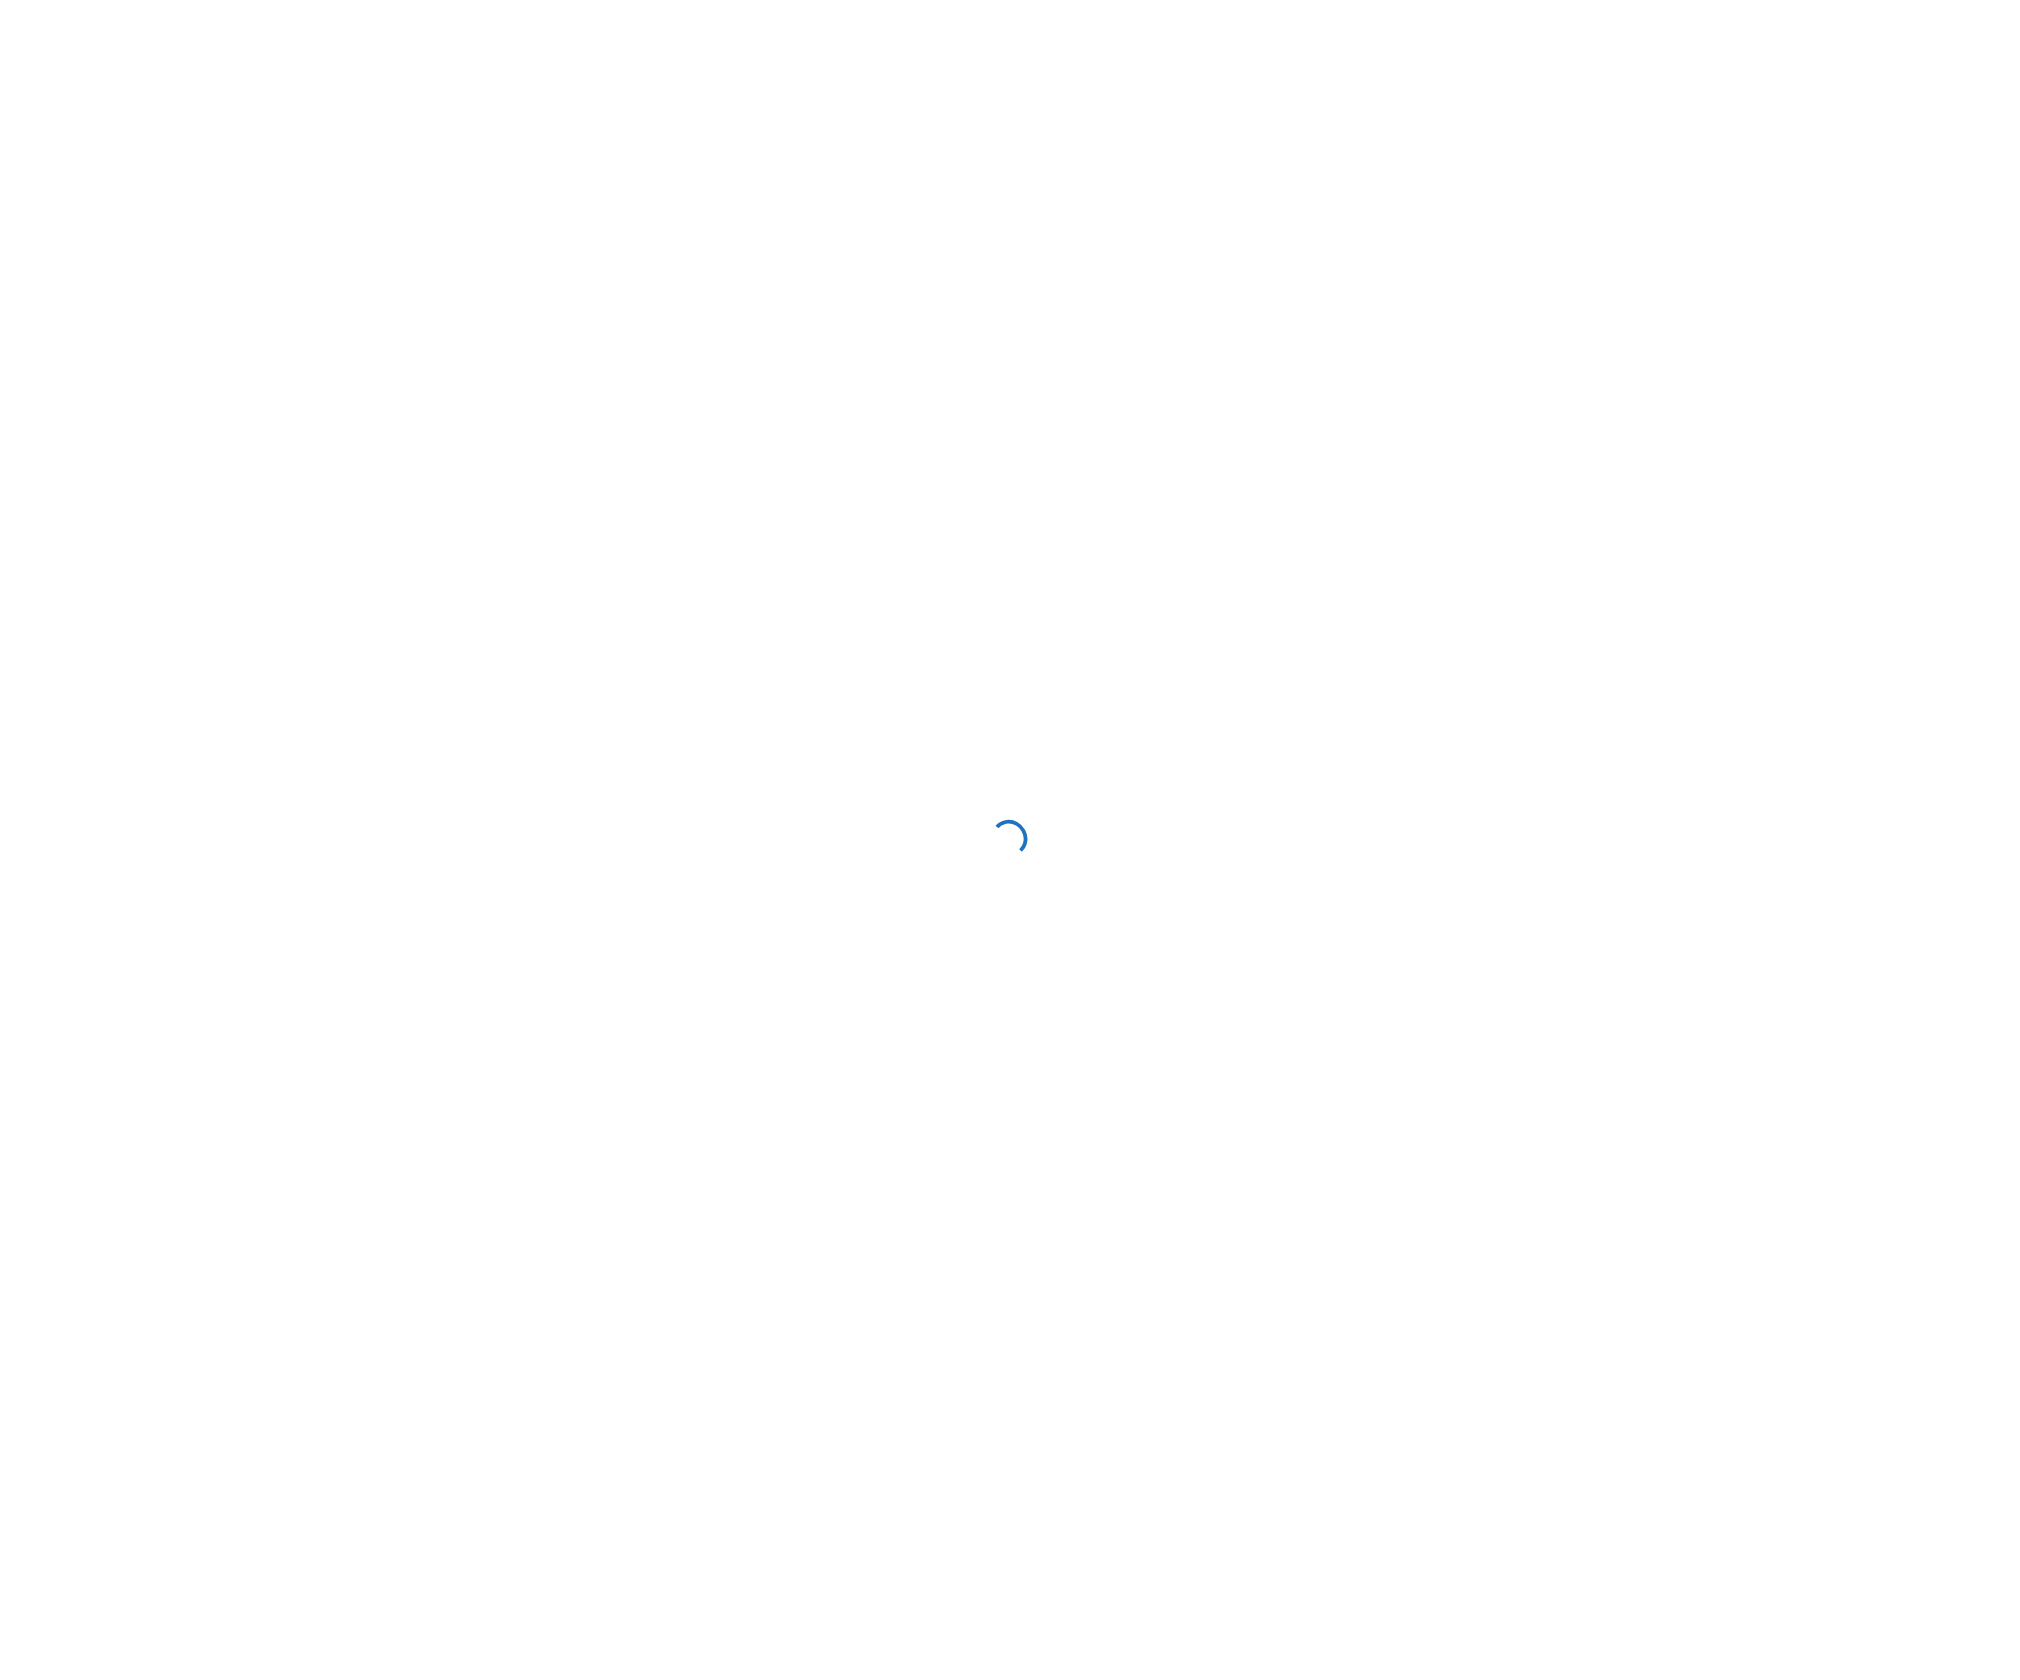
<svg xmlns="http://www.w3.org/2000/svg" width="2020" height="1680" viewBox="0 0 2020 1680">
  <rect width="100%" height="100%" fill="#ffffff"/>
  <path d="M997 827C999 824.5 1002 823 1005.5 822C1021.5 819 1032.5 839 1020.5 850.5" fill="none" stroke="#1e73be" stroke-width="3.8"/>
</svg>
